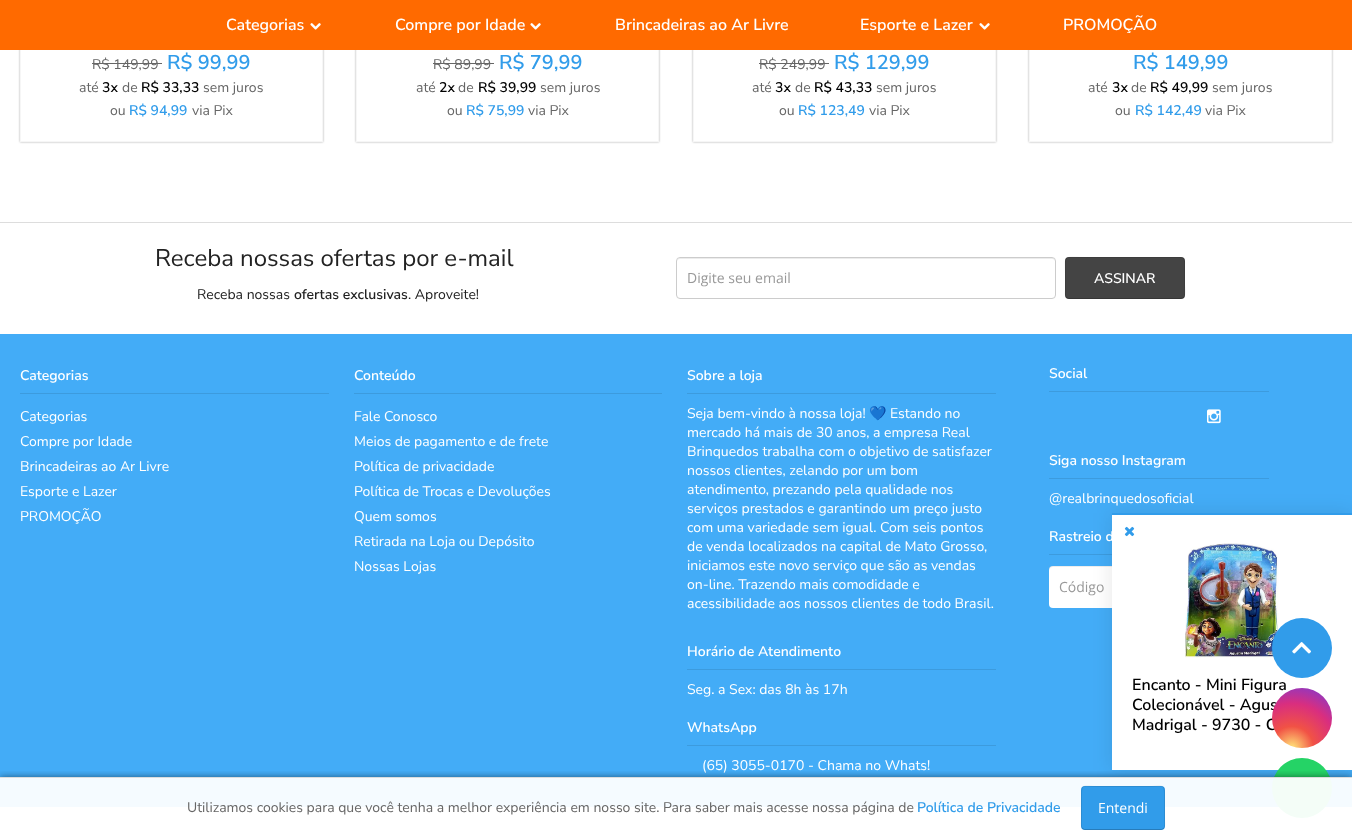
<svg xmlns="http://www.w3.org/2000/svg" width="1352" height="838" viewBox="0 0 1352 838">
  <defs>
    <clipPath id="clip1"><path d="M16 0H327V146H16ZM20-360H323V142H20Z" clip-rule="evenodd"/></clipPath>
    <filter id="blur1" x="-50%" y="-200%" width="200%" height="500%"><feGaussianBlur stdDeviation="1"/></filter>
    <clipPath id="clip2"><path d="M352 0H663V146H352ZM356-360H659V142H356Z" clip-rule="evenodd"/></clipPath>
    <clipPath id="clip3"><path d="M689 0H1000V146H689ZM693-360H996V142H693Z" clip-rule="evenodd"/></clipPath>
    <clipPath id="clip4"><path d="M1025 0H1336V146H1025ZM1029-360H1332V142H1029Z" clip-rule="evenodd"/></clipPath>
    <filter id="blur2" x="-50%" y="-200%" width="200%" height="500%"><feGaussianBlur stdDeviation="10"/></filter>
    <clipPath id="clip5"><rect x="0" y="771" width="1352" height="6"/></clipPath>
    <filter id="blur3" x="-50%" y="-200%" width="200%" height="500%"><feGaussianBlur stdDeviation="3.5"/></filter>
    <radialGradient id="g1" gradientUnits="userSpaceOnUse" cx="1292" cy="748" r="72"><stop offset="0.04" stop-color="#fed373"/><stop offset="0.3" stop-color="#f15245"/><stop offset="0.62" stop-color="#d92e7f"/><stop offset="0.85" stop-color="#9b36b7"/><stop offset="1" stop-color="#515ecf"/></radialGradient>
  </defs>
  <rect width="100%" height="100%" fill="#ffffff"/>
  <g clip-path="url(#clip1)">
    <rect x="20" y="-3" width="303" height="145" fill="#000000" fill-opacity="0.33" filter="url(#blur1)"/>
  </g>
  <rect x="20.5" y="-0.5" width="302" height="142" fill="none" stroke="#f6f6f6"/>
  <g clip-path="url(#clip2)">
    <rect x="356" y="-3" width="303" height="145" fill="#000000" fill-opacity="0.33" filter="url(#blur1)"/>
  </g>
  <rect x="356.5" y="-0.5" width="302" height="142" fill="none" stroke="#f6f6f6"/>
  <g clip-path="url(#clip3)">
    <rect x="693" y="-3" width="303" height="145" fill="#000000" fill-opacity="0.33" filter="url(#blur1)"/>
  </g>
  <rect x="693.5" y="-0.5" width="302" height="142" fill="none" stroke="#f6f6f6"/>
  <g clip-path="url(#clip4)">
    <rect x="1029" y="-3" width="303" height="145" fill="#000000" fill-opacity="0.33" filter="url(#blur1)"/>
  </g>
  <rect x="1029.5" y="-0.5" width="302" height="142" fill="none" stroke="#f6f6f6"/>
  <rect x="0" y="0" width="1352" height="50" fill="#ff6a00"/>
  <text x="226" y="30" font-family="Nunito Sans" font-size="16" font-weight="600" fill="#ffffff">Categorias</text>
  <image x="310" y="23" width="11" height="7" href="img1.png"/>
  <text x="395" y="30" font-family="Nunito Sans" font-size="16" font-weight="600" fill="#ffffff">Compre por Idade</text>
  <image x="530" y="23" width="11" height="7" href="img1.png"/>
  <text x="615" y="30" font-family="Nunito Sans" font-size="16" font-weight="600" fill="#ffffff">Brincadeiras ao Ar Livre</text>
  <text x="860" y="30" font-family="Nunito Sans" font-size="16" font-weight="600" fill="#ffffff">Esporte e Lazer</text>
  <image x="979" y="23" width="11" height="7" href="img1.png"/>
  <text x="1063" y="30" font-family="Nunito Sans" font-size="16" font-weight="600" fill="#ffffff">PROMOÇÃO</text>
  <text x="92" y="69" font-family="Nunito Sans" font-size="14" fill="#666666">R$ 149,99</text>
  <rect x="92" y="63" width="70" height="1" fill="#666666"/>
  <text x="167" y="69" font-family="Nunito Sans" font-size="20" font-weight="600" fill="#319cea">R$ 99,99</text>
  <text x="79" y="92" font-family="Nunito Sans" font-size="14" fill="#666666">até</text>
  <text x="102" y="92" font-family="Nunito Sans" font-size="14" font-weight="600" fill="#000000">3x</text>
  <text x="122" y="92" font-family="Nunito Sans" font-size="14" fill="#666666">de</text>
  <text x="141" y="92" font-family="Nunito Sans" font-size="14" font-weight="600" fill="#000000">R$ 33,33</text>
  <text x="203" y="92" font-family="Nunito Sans" font-size="14" fill="#666666">sem juros</text>
  <text x="110" y="115" font-family="Nunito Sans" font-size="14" fill="#666666">ou</text>
  <text x="129" y="115" font-family="Nunito Sans" font-size="14" font-weight="600" fill="#319cea">R$ 94,99</text>
  <text x="192" y="115" font-family="Nunito Sans" font-size="14" fill="#666666">via Pix</text>
  <text x="433" y="69" font-family="Nunito Sans" font-size="14" fill="#666666">R$ 89,99</text>
  <rect x="433" y="63" width="61" height="1" fill="#666666"/>
  <text x="499" y="69" font-family="Nunito Sans" font-size="20" font-weight="600" fill="#319cea">R$ 79,99</text>
  <text x="416" y="92" font-family="Nunito Sans" font-size="14" fill="#666666">até</text>
  <text x="439" y="92" font-family="Nunito Sans" font-size="14" font-weight="600" fill="#000000">2x</text>
  <text x="458" y="92" font-family="Nunito Sans" font-size="14" fill="#666666">de</text>
  <text x="478" y="92" font-family="Nunito Sans" font-size="14" font-weight="600" fill="#000000">R$ 39,99</text>
  <text x="540" y="92" font-family="Nunito Sans" font-size="14" fill="#666666">sem juros</text>
  <text x="447" y="115" font-family="Nunito Sans" font-size="14" fill="#666666">ou</text>
  <text x="466" y="115" font-family="Nunito Sans" font-size="14" font-weight="600" fill="#319cea">R$ 75,99</text>
  <text x="528" y="115" font-family="Nunito Sans" font-size="14" fill="#666666">via Pix</text>
  <text x="759" y="69" font-family="Nunito Sans" font-size="14" fill="#666666">R$ 249,99</text>
  <rect x="759" y="63" width="70" height="1" fill="#666666"/>
  <text x="834" y="69" font-family="Nunito Sans" font-size="20" font-weight="600" fill="#319cea">R$ 129,99</text>
  <text x="752" y="92" font-family="Nunito Sans" font-size="14" fill="#666666">até</text>
  <text x="775" y="92" font-family="Nunito Sans" font-size="14" font-weight="600" fill="#000000">3x</text>
  <text x="795" y="92" font-family="Nunito Sans" font-size="14" fill="#666666">de</text>
  <text x="814" y="92" font-family="Nunito Sans" font-size="14" font-weight="600" fill="#000000">R$ 43,33</text>
  <text x="876" y="92" font-family="Nunito Sans" font-size="14" fill="#666666">sem juros</text>
  <text x="779" y="115" font-family="Nunito Sans" font-size="14" fill="#666666">ou</text>
  <text x="798" y="115" font-family="Nunito Sans" font-size="14" font-weight="600" fill="#319cea">R$ 123,49</text>
  <text x="869" y="115" font-family="Nunito Sans" font-size="14" fill="#666666">via Pix</text>
  <text x="1133" y="69" font-family="Nunito Sans" font-size="20" font-weight="600" fill="#319cea">R$ 149,99</text>
  <text x="1088" y="92" font-family="Nunito Sans" font-size="14" fill="#666666">até</text>
  <text x="1112" y="92" font-family="Nunito Sans" font-size="14" font-weight="600" fill="#000000">3x</text>
  <text x="1131" y="92" font-family="Nunito Sans" font-size="14" fill="#666666">de</text>
  <text x="1150" y="92" font-family="Nunito Sans" font-size="14" font-weight="600" fill="#000000">R$ 49,99</text>
  <text x="1212" y="92" font-family="Nunito Sans" font-size="14" fill="#666666">sem juros</text>
  <text x="1115" y="115" font-family="Nunito Sans" font-size="14" fill="#666666">ou</text>
  <text x="1135" y="115" font-family="Nunito Sans" font-size="14" font-weight="600" fill="#319cea">R$ 142,49</text>
  <text x="1205" y="115" font-family="Nunito Sans" font-size="14" fill="#666666">via Pix</text>
  <rect x="0" y="334" width="1352" height="473" fill="#43acf7"/>
  <rect x="1049" y="554" width="63" height="1" fill="#3c9bde"/>
  <rect x="1049" y="566" width="216" height="42" rx="4" fill="#ffffff"/>
  <path d="M1053 567H1261C1263 567 1265 569 1265 571C1265 568 1264 566 1261 566H1051C1049 567 1049 569 1049 571C1049 569 1051 567 1053 567Z" fill="#000000" fill-opacity="0.07"/>
  <rect x="1112" y="513" width="240" height="257" fill="#000000" fill-opacity="0.1" filter="url(#blur2)"/>
  <rect x="1112" y="515" width="240" height="255" fill="#ffffff"/>
  <rect x="1112" y="513" width="240" height="2" fill="#319cea"/>
  <image x="1124" y="526" width="11" height="11" href="img2.png"/>
  <image x="1185" y="543" width="94" height="115" href="img3.png"/>
  <text x="1132" y="690" font-family="Nunito Sans" font-size="16" font-weight="600" fill="#000000">Encanto - Mini Figura</text>
  <text x="1132" y="710" font-family="Nunito Sans" font-size="16" font-weight="600" fill="#000000">Colecionável - Agus</text>
  <text x="1132" y="730" font-family="Nunito Sans" font-size="16" font-weight="600" fill="#000000">Madrigal - 9730 - C</text>
  <rect x="0" y="222" width="1352" height="1" fill="#dddddd"/>
  <text x="155" y="266" font-family="Nunito Sans" font-size="24" fill="#222222">Receba nossas ofertas por e-mail</text>
  <text x="197" y="299" font-family="Nunito Sans" font-size="14" fill="#222222">Receba nossas</text>
  <text x="294" y="299" font-family="Nunito Sans" font-size="14" font-weight="600" fill="#222222">ofertas exclusivas</text>
  <text x="408" y="299" font-family="Nunito Sans" font-size="14" fill="#222222">. Aproveite!</text>
  <path d="M680 259H1052C1054 259 1055 260 1055 262C1055 260 1054 258 1052 258H680L678 259L677 262C677 260 678 259 680 259Z" fill="#ececec"/>
  <rect x="676.5" y="257.5" width="379" height="41" rx="3.5" fill="none" stroke="#cccccc"/>
  <text x="687" y="283" font-family="Open Sans" font-size="14" fill="#999999">Digite seu email</text>
  <rect x="1065" y="257" width="120" height="42" rx="4" fill="#444444"/>
  <path d="M1183.5 297.5L1181 298.5H1068.5L1066.5 297.5" fill="none" stroke="#000000" stroke-opacity="0.2"/>
  <path d="M1066.5 297.5C1064.5 295.5 1065.5 291 1065.5 289.5V278C1065.5 253 1061 257.5 1087.5 257.5H1181C1185.5 257.5 1184.5 264 1184.5 266.5V283.5C1184.5 286.5 1186 295 1183.5 297.5" fill="none" stroke="#000000" stroke-opacity="0.1"/>
  <text x="1094" y="283" font-family="Nunito Sans" font-size="14" font-weight="600" fill="#ffffff">ASSINAR</text>
  <rect x="20" y="393" width="309" height="1" fill="#3c9bde"/>
  <text x="20" y="380" font-family="Nunito Sans" font-size="14" font-weight="600" fill="#ffffff">Categorias</text>
  <text x="20" y="421" font-family="Nunito Sans" font-size="14" fill="#ffffff">Categorias</text>
  <text x="20" y="446" font-family="Nunito Sans" font-size="14" fill="#ffffff">Compre por Idade</text>
  <text x="20" y="471" font-family="Nunito Sans" font-size="14" fill="#ffffff">Brincadeiras ao Ar Livre</text>
  <text x="20" y="496" font-family="Nunito Sans" font-size="14" fill="#ffffff">Esporte e Lazer</text>
  <text x="20" y="521" font-family="Nunito Sans" font-size="14" fill="#ffffff">PROMOÇÃO</text>
  <rect x="354" y="393" width="308" height="1" fill="#3c9bde"/>
  <text x="354" y="380" font-family="Nunito Sans" font-size="14" font-weight="600" fill="#ffffff">Conteúdo</text>
  <text x="354" y="421" font-family="Nunito Sans" font-size="14" fill="#ffffff">Fale Conosco</text>
  <text x="354" y="446" font-family="Nunito Sans" font-size="14" fill="#ffffff">Meios de pagamento e de frete</text>
  <text x="354" y="471" font-family="Nunito Sans" font-size="14" fill="#ffffff">Política de privacidade</text>
  <text x="354" y="496" font-family="Nunito Sans" font-size="14" fill="#ffffff">Política de Trocas e Devoluções</text>
  <text x="354" y="521" font-family="Nunito Sans" font-size="14" fill="#ffffff">Quem somos</text>
  <text x="354" y="546" font-family="Nunito Sans" font-size="14" fill="#ffffff">Retirada na Loja ou Depósito</text>
  <text x="354" y="571" font-family="Nunito Sans" font-size="14" fill="#ffffff">Nossas Lojas</text>
  <rect x="687" y="393" width="309" height="1" fill="#3c9bde"/>
  <text x="687" y="380" font-family="Nunito Sans" font-size="14" font-weight="600" fill="#ffffff">Sobre a loja</text>
  <text x="687" y="418" font-family="Nunito Sans" font-size="14" fill="#ffffff">Seja bem-vindo à nossa loja!</text>
  <text x="869" y="418" font-family="Noto Color Emoji" font-size="14" fill="#ffffff">💙</text>
  <text x="890" y="418" font-family="Nunito Sans" font-size="14" fill="#ffffff">Estando no</text>
  <text x="687" y="437" font-family="Nunito Sans" font-size="14" fill="#ffffff">mercado há mais de 30 anos, a empresa Real</text>
  <text x="687" y="456" font-family="Nunito Sans" font-size="14" fill="#ffffff">Brinquedos trabalha com o objetivo de satisfazer</text>
  <text x="687" y="475" font-family="Nunito Sans" font-size="14" fill="#ffffff">nossos clientes, zelando por um bom</text>
  <text x="687" y="494" font-family="Nunito Sans" font-size="14" fill="#ffffff">atendimento, prezando pela qualidade nos</text>
  <text x="687" y="513" font-family="Nunito Sans" font-size="14" fill="#ffffff">serviços prestados e garantindo um preço justo</text>
  <text x="687" y="532" font-family="Nunito Sans" font-size="14" fill="#ffffff">com uma variedade sem igual. Com seis pontos</text>
  <text x="687" y="551" font-family="Nunito Sans" font-size="14" fill="#ffffff">de venda localizados na capital de Mato Grosso,</text>
  <text x="687" y="570" font-family="Nunito Sans" font-size="14" fill="#ffffff">iniciamos este novo serviço que são as vendas</text>
  <text x="687" y="589" font-family="Nunito Sans" font-size="14" fill="#ffffff">on-line. Trazendo mais comodidade e</text>
  <text x="687" y="608" font-family="Nunito Sans" font-size="14" fill="#ffffff">acessibilidade aos nossos clientes de todo Brasil.</text>
  <rect x="687" y="669" width="309" height="1" fill="#3c9bde"/>
  <text x="687" y="656" font-family="Nunito Sans" font-size="14" font-weight="600" fill="#ffffff">Horário de Atendimento</text>
  <text x="687" y="694" font-family="Nunito Sans" font-size="14" fill="#ffffff">Seg. a Sex: das 8h às 17h</text>
  <rect x="687" y="745" width="309" height="1" fill="#3c9bde"/>
  <text x="687" y="732" font-family="Nunito Sans" font-size="14" font-weight="600" fill="#ffffff">WhatsApp</text>
  <text x="702" y="770" font-family="Nunito Sans" font-size="14" fill="#ffffff">(65) 3055-0170 - Chama no Whats!</text>
  <rect x="1049" y="391" width="220" height="1" fill="#3c9bde"/>
  <text x="1049" y="378" font-family="Nunito Sans" font-size="14" font-weight="600" fill="#ffffff">Social</text>
  <image x="1207" y="409" width="14" height="15" href="img4.png"/>
  <rect x="1049" y="478" width="220" height="1" fill="#3c9bde"/>
  <text x="1049" y="465" font-family="Nunito Sans" font-size="14" font-weight="600" fill="#ffffff">Siga nosso Instagram</text>
  <text x="1049" y="503" font-family="Nunito Sans" font-size="14" fill="#ffffff">@realbrinquedosoficial</text>
  <text x="1049" y="541" font-family="Nunito Sans" font-size="14" font-weight="600" fill="#ffffff">Rastreio d</text>
  <text x="1059" y="592" font-family="Open Sans" font-size="14" fill="#999999">Código</text>
  <rect x="0" y="807" width="1352" height="31" fill="#faffff"/>
  <circle cx="1302" cy="648" r="30" fill="#319cea"/>
  <image x="1292" y="642" width="19" height="12" href="img5.png"/>
  <circle cx="1302" cy="788" r="30" fill="#25d366"/>
  <g clip-path="url(#clip5)">
    <rect x="0" y="777" width="1352" height="61" fill="#000000" fill-opacity="0.5" filter="url(#blur3)"/>
  </g>
  <rect x="0" y="778" width="1352" height="60" fill="#ffffff" fill-opacity="0.95"/>
  <rect x="0" y="777" width="1352" height="1" fill="#dddddd"/>
  <text x="187" y="812" font-family="Nunito Sans" font-size="14" fill="#666666">Utilizamos cookies para que você tenha a melhor experiência em nosso site. Para saber mais acesse nossa página de</text>
  <text x="917" y="812" font-family="Nunito Sans" font-size="14" font-weight="600" fill="#319cea">Política de Privacidade</text>
  <rect x="1081" y="786" width="84" height="44" rx="4" fill="#319cea"/>
  <path d="M1163.5 828.5L1161.5 829.5H1084.5L1082.5 828.5" fill="none" stroke="#000000" stroke-opacity="0.2"/>
  <path d="M1082.5 828.5C1080.5 826.5 1081.5 821.5 1081.5 820V796C1081.5 783 1083 786.5 1097.5 786.5H1148.5C1163 786.5 1164.5 783 1164.5 796V820C1164.5 821.5 1165.5 826.5 1163.5 828.5" fill="none" stroke="#000000" stroke-opacity="0.1"/>
  <text x="1098" y="813" font-family="Open Sans" font-size="14" fill="#ffffff">Entendi</text>
  <circle cx="1302" cy="718" r="30" fill="url(#g1)"/>
</svg>
